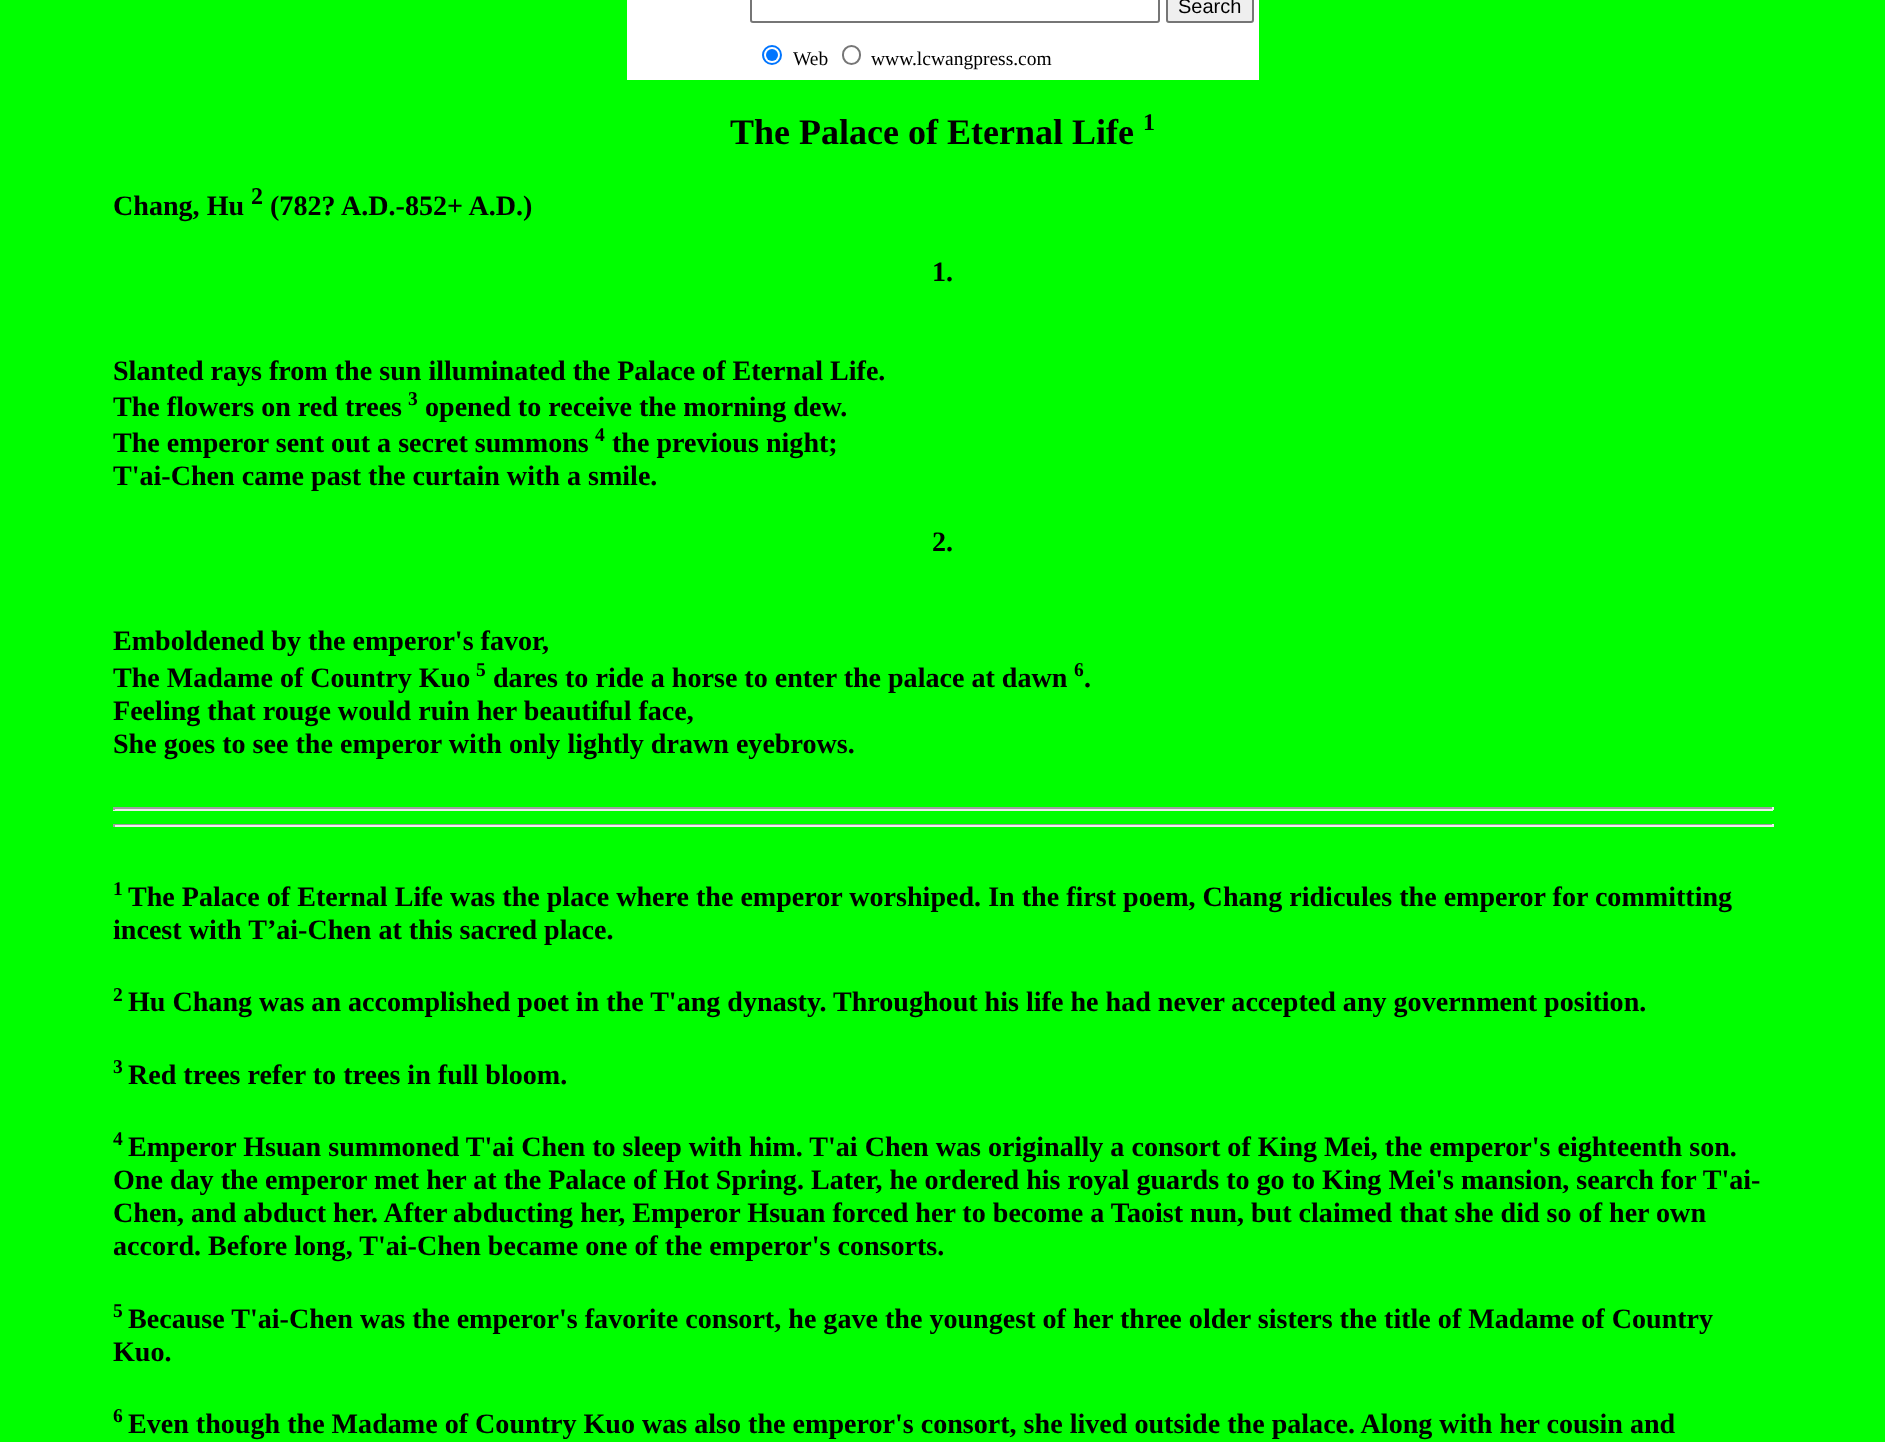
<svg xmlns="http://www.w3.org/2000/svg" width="1885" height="1442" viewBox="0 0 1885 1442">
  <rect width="100%" height="100%" fill="#00ff00"/>
  <rect x="627" y="0" width="632" height="80" fill="#ffffff"/>
  <rect x="751" y="-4" width="408" height="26" rx="2" fill="none" stroke="#767676" stroke-width="2"/>
  <rect x="1167" y="-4" width="86" height="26" rx="2" fill="#efefef" stroke="#767676" stroke-width="2"/>
  <text x="1178" y="13" font-family="Liberation Sans" font-size="20" fill="#000000">Search</text>
  <circle cx="772" cy="55" r="9" fill="none" stroke="#0075ff" stroke-width="2"/>
  <circle cx="772" cy="55" r="6" fill="#0075ff"/>
  <text x="793" y="65" font-family="Liberation Serif" font-size="19.5" fill="#000000">Web</text>
  <rect x="843" y="46" width="17" height="18" rx="8.5" fill="none" stroke="#767676" stroke-width="2"/>
  <text x="871" y="65" font-family="Liberation Serif" font-size="19.5" fill="#000000">www.lcwangpress.com</text>
  <text x="730" y="144" font-family="Liberation Serif" font-size="36" font-weight="bold" fill="#000000">The Palace of Eternal Life</text>
  <text x="1143" y="130" font-family="Liberation Serif" font-size="24" font-weight="bold" fill="#000000">1</text>
  <text x="113" y="215" font-family="Liberation Serif" font-size="28.08" font-weight="bold" fill="#000000">Chang, Hu</text>
  <text x="251" y="204" font-family="Liberation Serif" font-size="24" font-weight="bold" fill="#000000">2</text>
  <text x="270" y="215" font-family="Liberation Serif" font-size="28.08" font-weight="bold" fill="#000000">(782? A.D.-852+ A.D.)</text>
  <text x="932" y="281" font-family="Liberation Serif" font-size="28.08" font-weight="bold" fill="#000000">1.</text>
  <text x="113" y="380" font-family="Liberation Serif" font-size="28.08" font-weight="bold" fill="#000000">Slanted rays from the sun illuminated the Palace of Eternal Life.</text>
  <text x="113" y="416" font-family="Liberation Serif" font-size="28.08" font-weight="bold" fill="#000000">The flowers on red trees</text>
  <text x="408" y="405" font-family="Liberation Serif" font-size="19.5" font-weight="bold" fill="#000000">3</text>
  <text x="425" y="416" font-family="Liberation Serif" font-size="28.08" font-weight="bold" fill="#000000">opened to receive the morning dew.</text>
  <text x="113" y="452" font-family="Liberation Serif" font-size="28.08" font-weight="bold" fill="#000000">The emperor sent out a secret summons</text>
  <text x="595" y="441" font-family="Liberation Serif" font-size="19.5" font-weight="bold" fill="#000000">4</text>
  <text x="612" y="452" font-family="Liberation Serif" font-size="28.08" font-weight="bold" fill="#000000">the previous night;</text>
  <text x="113" y="485" font-family="Liberation Serif" font-size="28.08" font-weight="bold" fill="#000000">T'ai-Chen came past the curtain with a smile.</text>
  <text x="932" y="551" font-family="Liberation Serif" font-size="28.08" font-weight="bold" fill="#000000">2.</text>
  <text x="113" y="650" font-family="Liberation Serif" font-size="28.08" font-weight="bold" fill="#000000">Emboldened by the emperor's favor,</text>
  <text x="113" y="687" font-family="Liberation Serif" font-size="28.08" font-weight="bold" fill="#000000">The Madame of Country Kuo</text>
  <text x="476" y="676" font-family="Liberation Serif" font-size="19.5" font-weight="bold" fill="#000000">5</text>
  <text x="493" y="687" font-family="Liberation Serif" font-size="28.08" font-weight="bold" fill="#000000">dares to ride a horse to enter the</text>
  <text x="888" y="687" font-family="Liberation Serif" font-size="28.08" font-weight="bold" fill="#000000">palace at dawn</text>
  <text x="1074" y="676" font-family="Liberation Serif" font-size="19.5" font-weight="bold" fill="#000000">6</text>
  <text x="1084" y="687" font-family="Liberation Serif" font-size="28.08" font-weight="bold" fill="#000000">.</text>
  <text x="113" y="720" font-family="Liberation Serif" font-size="28.08" font-weight="bold" fill="#000000">Feeling that rouge would ruin her beautiful face,</text>
  <text x="113" y="753" font-family="Liberation Serif" font-size="28.08" font-weight="bold" fill="#000000">She goes to see the emperor with only lightly drawn eyebrows.</text>
  <rect x="113" y="807" width="1660" height="2" fill="#9f9f9f"/>
  <rect x="1772" y="807" width="2" height="3" fill="#eeeeee"/>
  <rect x="113" y="809" width="1660" height="2" fill="#eeeeee"/>
  <rect x="113" y="807" width="2" height="3" fill="#9f9f9f"/>
  <rect x="113" y="824" width="1660" height="1" fill="#9f9f9f"/>
  <rect x="1772" y="824" width="2" height="3" fill="#eeeeee"/>
  <rect x="113" y="825" width="1660" height="2" fill="#eeeeee"/>
  <rect x="113" y="824" width="2" height="3" fill="#9f9f9f"/>
  <text x="113" y="895" font-family="Liberation Serif" font-size="19.5" font-weight="bold" fill="#000000">1</text>
  <text x="128" y="906" font-family="Liberation Serif" font-size="28.08" font-weight="bold" fill="#000000">The Palace of Eternal Life was the place where the emperor worshiped. In the first poem, Chang ridicules the emperor for committing</text>
  <text x="113" y="939" font-family="Liberation Serif" font-size="28.08" font-weight="bold" fill="#000000">incest with T’ai-Chen at this sacred place.</text>
  <text x="113" y="1001" font-family="Liberation Serif" font-size="19.5" font-weight="bold" fill="#000000">2</text>
  <text x="128" y="1011" font-family="Liberation Serif" font-size="28.08" font-weight="bold" fill="#000000">Hu Chang was an accomplished poet in the T'ang dynasty. Throughout his life he had never accepted any government position.</text>
  <text x="113" y="1073" font-family="Liberation Serif" font-size="19.5" font-weight="bold" fill="#000000">3</text>
  <text x="128" y="1084" font-family="Liberation Serif" font-size="28.08" font-weight="bold" fill="#000000">Red trees refer to trees in full bloom.</text>
  <text x="113" y="1145" font-family="Liberation Serif" font-size="19.5" font-weight="bold" fill="#000000">4</text>
  <text x="128" y="1156" font-family="Liberation Serif" font-size="28.08" font-weight="bold" fill="#000000">Emperor Hsuan summoned T'ai Chen to sleep with him. T'ai Chen was originally a consort of King Mei, the emperor's eighteenth son.</text>
  <text x="113" y="1189" font-family="Liberation Serif" font-size="28.08" font-weight="bold" fill="#000000">One day the emperor met her at the Palace of Hot Spring. Later, he ordered his royal guards to go to King Mei's mansion, search for T'ai-</text>
  <text x="113" y="1222" font-family="Liberation Serif" font-size="28.08" font-weight="bold" fill="#000000">Chen, and abduct her. After</text>
  <text x="453" y="1222" font-family="Liberation Serif" font-size="28.08" font-weight="bold" fill="#000000">abducting her, Emperor Hsuan forced her to become a Taoist nun, but claimed that she did so of her own</text>
  <text x="113" y="1255" font-family="Liberation Serif" font-size="28.08" font-weight="bold" fill="#000000">accord. Before long, T'ai-Chen became one of the emperor's consorts.</text>
  <text x="113" y="1317" font-family="Liberation Serif" font-size="19.5" font-weight="bold" fill="#000000">5</text>
  <text x="128" y="1328" font-family="Liberation Serif" font-size="28.08" font-weight="bold" fill="#000000">Because T'ai-Chen was the emperor's favorite consort, he gave the youngest of her three older sisters the title of Madame of Country</text>
  <text x="113" y="1361" font-family="Liberation Serif" font-size="28.08" font-weight="bold" fill="#000000">Kuo.</text>
  <text x="113" y="1422" font-family="Liberation Serif" font-size="19.5" font-weight="bold" fill="#000000">6</text>
  <text x="128" y="1433" font-family="Liberation Serif" font-size="28.08" font-weight="bold" fill="#000000">Even though the Madame of Country Kuo was also the emperor's consort, she lived outside the palace. Along with her cousin and</text>
</svg>
